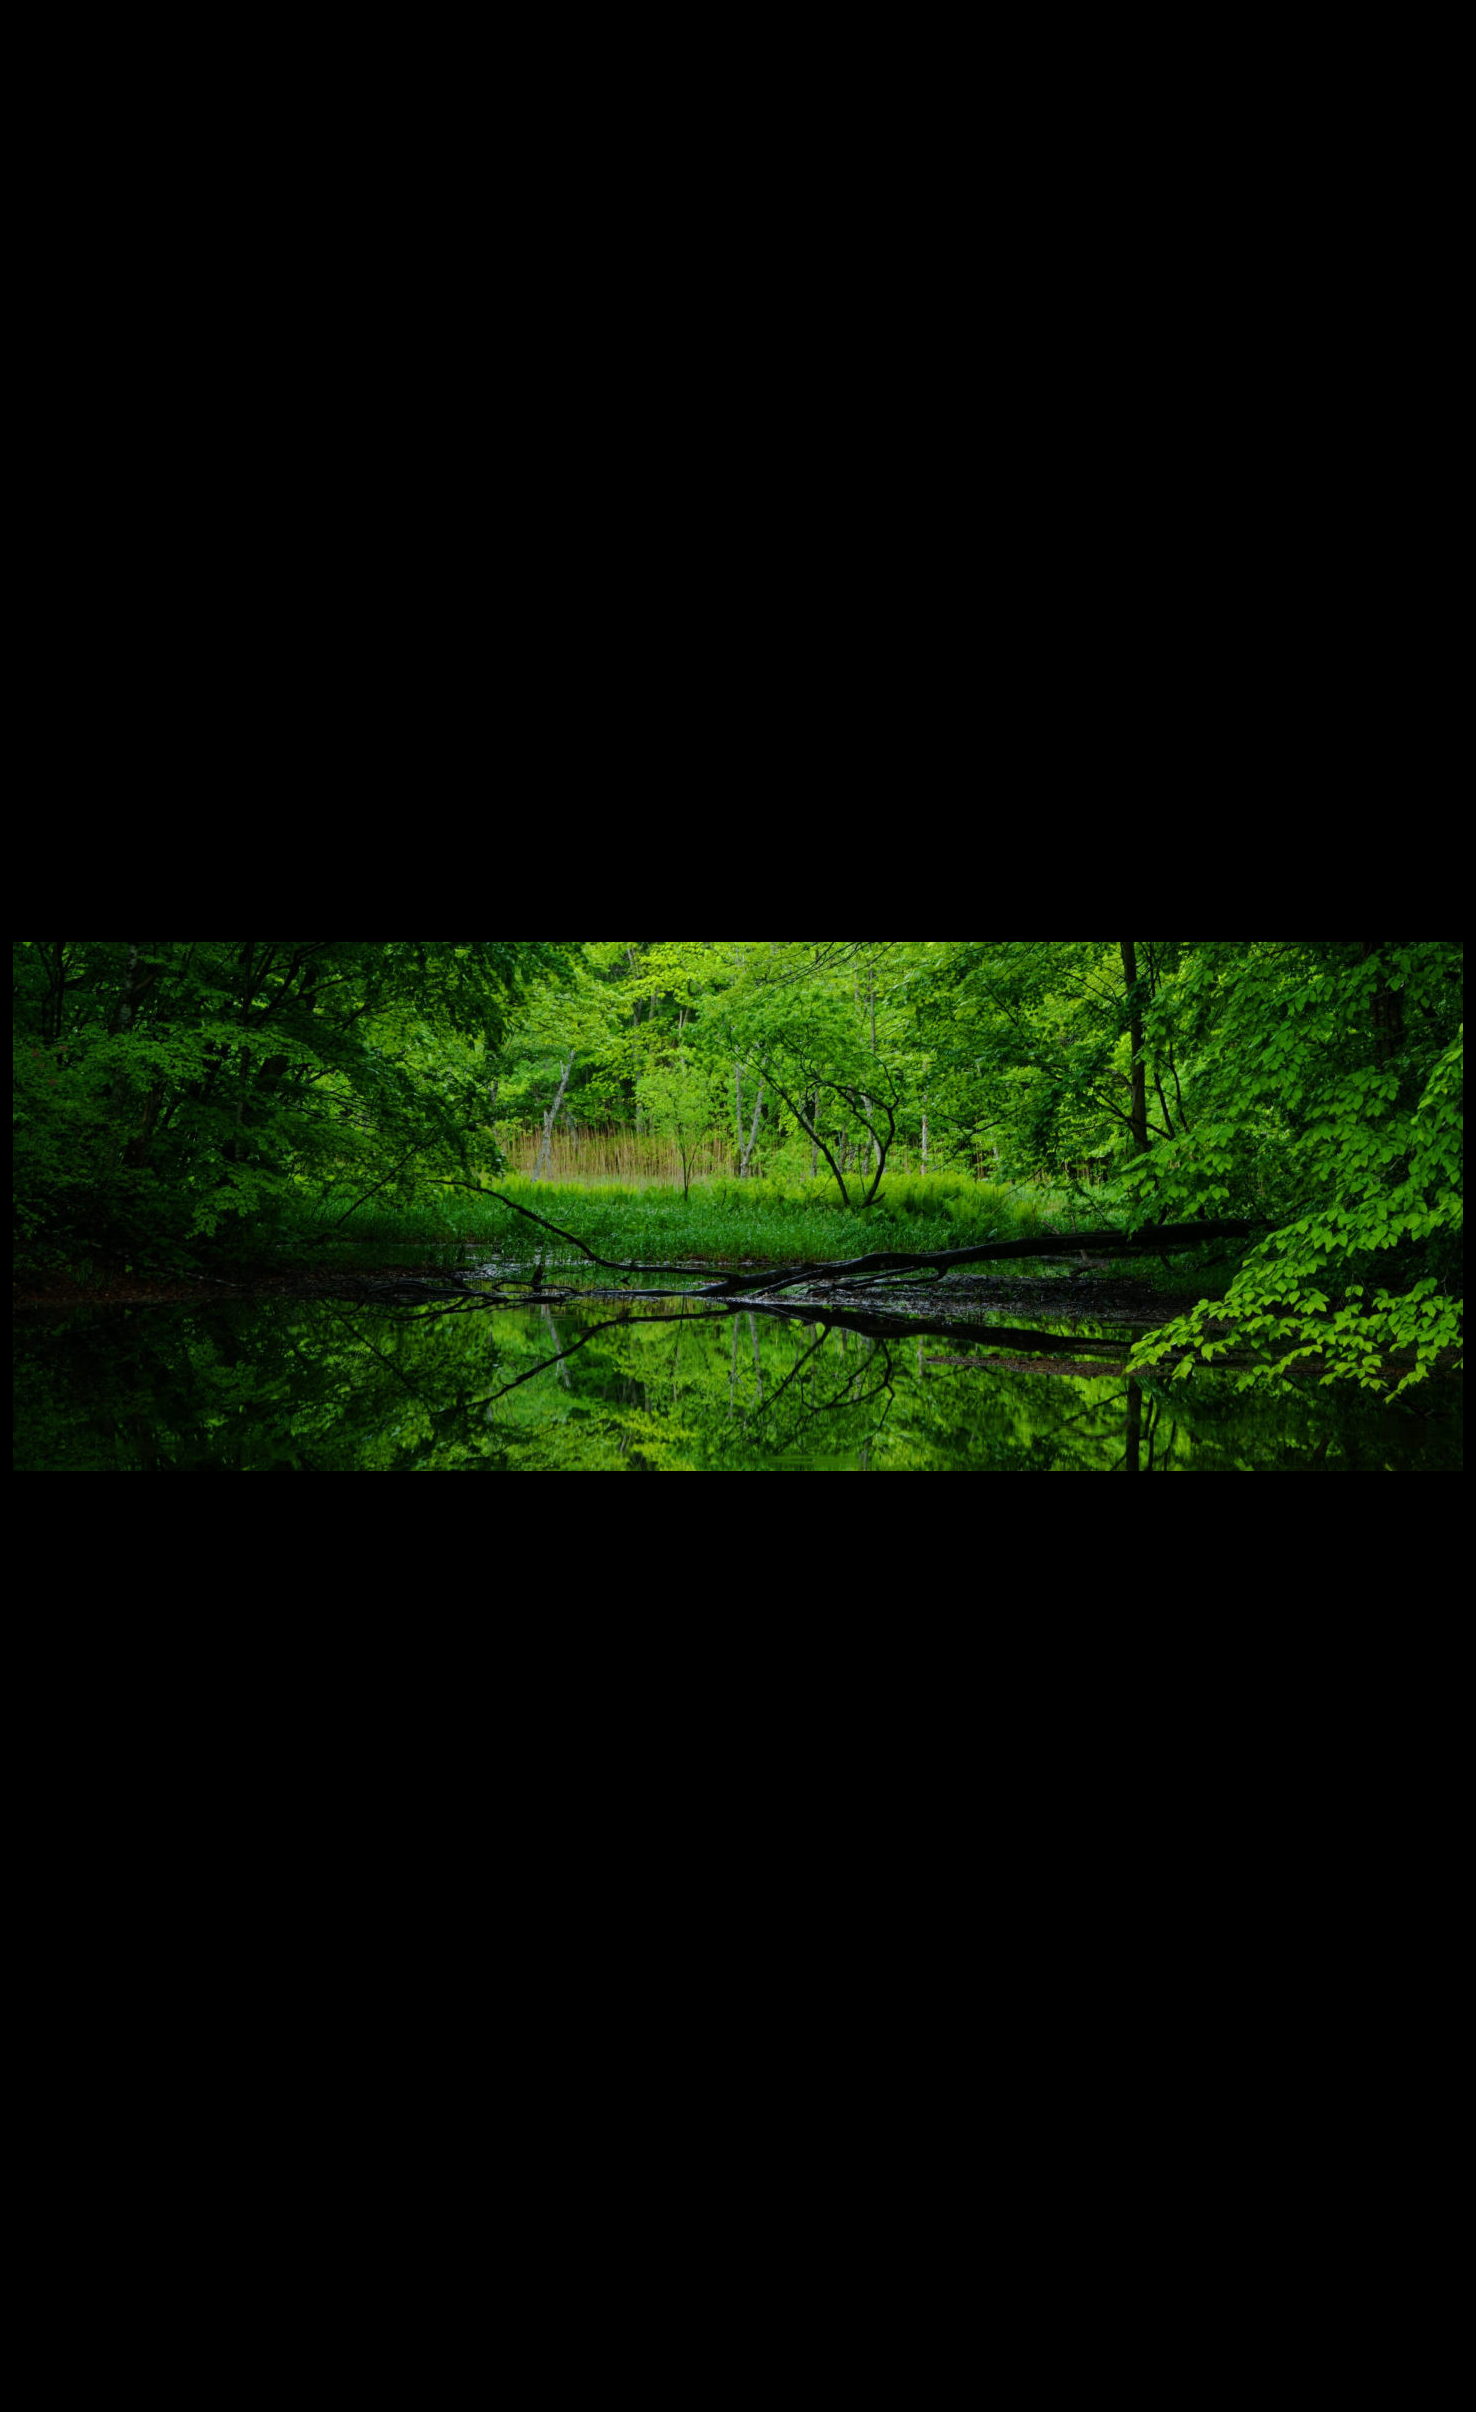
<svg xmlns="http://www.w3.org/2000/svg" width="1476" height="2412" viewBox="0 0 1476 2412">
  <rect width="100%" height="100%" fill="#000000"/>
  <image x="13" y="942" width="1450" height="529" href="img1.png"/>
</svg>
